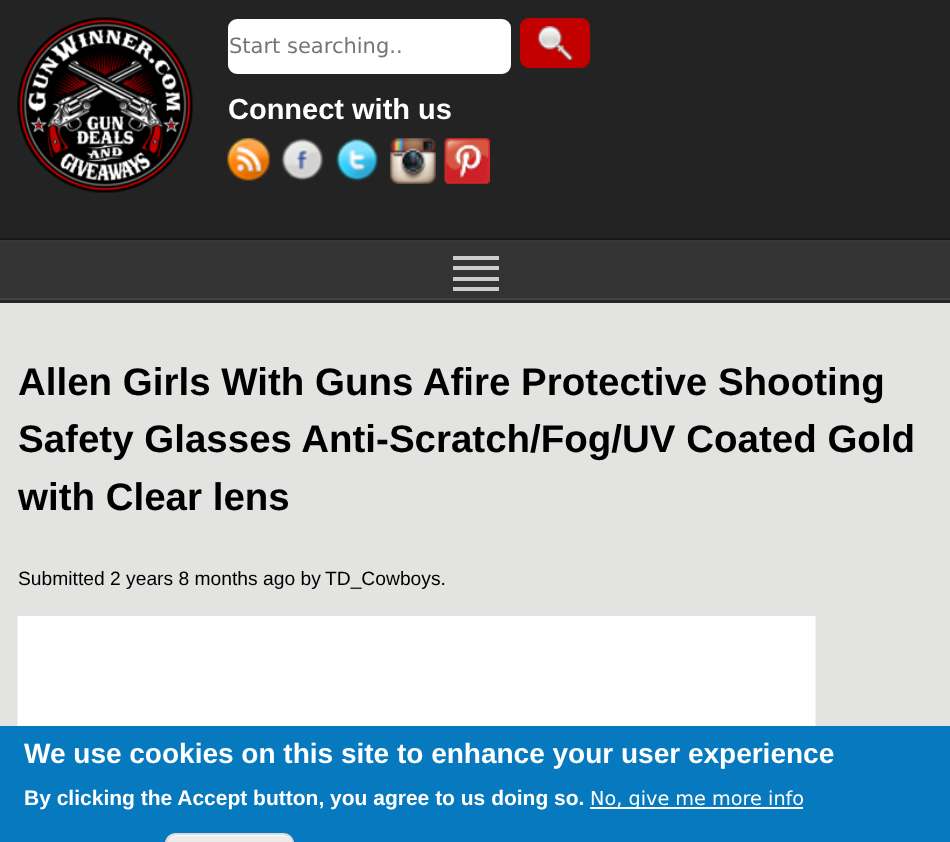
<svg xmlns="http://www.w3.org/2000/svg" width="950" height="842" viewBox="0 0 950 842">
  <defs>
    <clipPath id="clip1"><rect x="165" y="833" width="129" height="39" rx="11"/></clipPath>
    <linearGradient id="g1" gradientUnits="userSpaceOnUse" x1="229" y1="835" x2="229" y2="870"><stop offset="0.05" stop-color="#ededed"/><stop offset="1" stop-color="#dfdfdf"/></linearGradient>
  </defs>
  <rect width="100%" height="100%" fill="#232323"/>
  <image x="17" y="17" width="176" height="176" href="img1.png"/>
  <rect x="229" y="20" width="281" height="53" rx="8" fill="#ffffff" stroke="#ffffff" stroke-width="2"/>
  <text x="229" y="53" font-family="DejaVu Sans" font-size="21" fill="#757575">Start searching..</text>
  <rect x="520" y="18" width="70" height="50" rx="9" fill="#c20000"/>
  <image x="537" y="26" width="36" height="36" href="img2.png"/>
  <text x="228" y="119" font-family="Liberation Sans" font-size="29" font-weight="bold" fill="#ffffff">Connect with us</text>
  <image x="227" y="138" width="43" height="43" href="img3.png"/>
  <image x="281" y="138" width="43" height="43" href="img4.png"/>
  <image x="336" y="138" width="42" height="43" href="img5.png"/>
  <image x="390" y="138" width="46" height="46" href="img6.png"/>
  <image x="444" y="138" width="46" height="46" href="img7.png"/>
  <rect x="0" y="303" width="950" height="423" fill="#e3e3e2"/>
  <rect x="0" y="238" width="950" height="2" fill="#171717"/>
  <rect x="0" y="300" width="950" height="3" fill="#262626"/>
  <rect x="0" y="242" width="950" height="56" fill="#333333"/>
  <rect x="0" y="240" width="950" height="2" fill="#383838"/>
  <rect x="0" y="298" width="950" height="2" fill="#444444"/>
  <rect x="453" y="256" width="46" height="4" fill="#cccccc"/>
  <rect x="453" y="266" width="46" height="4" fill="#cccccc"/>
  <rect x="453" y="277" width="46" height="4" fill="#cccccc"/>
  <rect x="453" y="287" width="46" height="4" fill="#cccccc"/>
  <text x="18" y="395" font-family="Liberation Sans" font-size="38.5" font-weight="bold" fill="#000000">Allen Girls With Guns Afire Protective Shooting</text>
  <text x="18" y="452" font-family="Liberation Sans" font-size="38.5" font-weight="bold" fill="#000000">Safety Glasses Anti-Scratch/Fog/UV Coated Gold</text>
  <text x="18" y="510" font-family="Liberation Sans" font-size="38.5" font-weight="bold" fill="#000000">with Clear lens</text>
  <text x="18" y="585" font-family="Liberation Sans" font-size="19.25" fill="#000000">Submitted 2 years 8 months ago by</text>
  <text x="325" y="585" font-family="Liberation Sans" font-size="19.25" fill="#000000">TD_Cowboys.</text>
  <image x="17" y="616" width="799" height="110" href="img8.png"/>
  <rect x="0" y="726" width="950" height="116" fill="#0779bf"/>
  <text x="24" y="763" font-family="Liberation Sans" font-size="28" font-weight="bold" fill="#ffffff">We use cookies on this site to enhance your user experience</text>
  <text x="24" y="805" font-family="Liberation Sans" font-size="21" font-weight="bold" fill="#ffffff">By clicking the Accept button, you agree to us doing so.</text>
  <rect x="590" y="807" width="213" height="2" fill="#ffffff"/>
  <text x="590" y="805" font-family="DejaVu Sans" font-size="19.25" fill="#ffffff">No, give me more info</text>
  <g clip-path="url(#clip1)">
    <rect x="165" y="835" width="129" height="7" fill="url(#g1)"/>
  </g>
  <path d="M175 836H284C288 836 292 840 292 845C292 831 274 835 265 835H193C184 835 166 831 166 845C166 840 170 836 175 836Z" fill="#ffffff"/>
  <rect x="166" y="834" width="127" height="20" rx="10" fill="none" stroke="#dcdcdc" stroke-width="2"/>
</svg>
